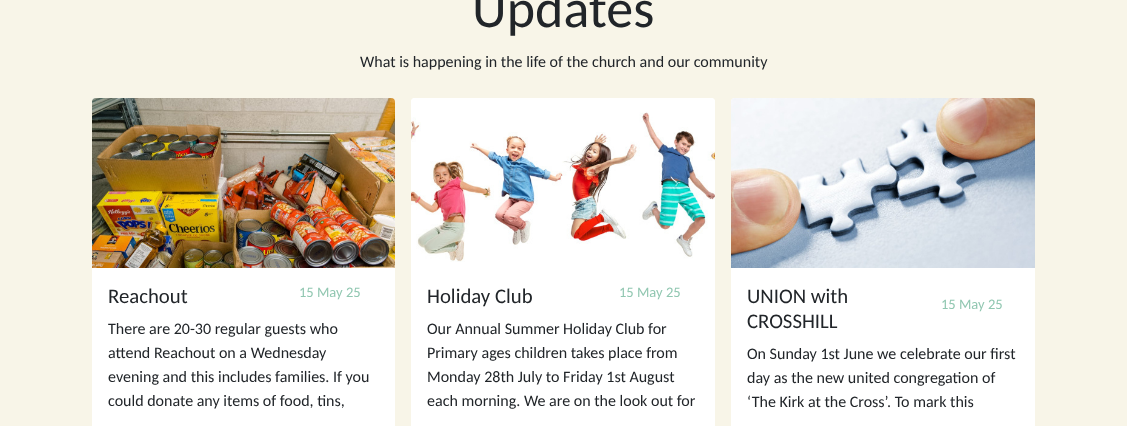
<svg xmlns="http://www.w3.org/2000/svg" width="1127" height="426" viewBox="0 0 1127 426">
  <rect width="100%" height="100%" fill="#f8f5e8"/>
  <text x="472" y="27" font-family="Carlito" font-size="54" fill="#212529">Updates</text>
  <text x="360" y="67" font-family="Carlito" font-size="16" fill="#212529">What is happening in the life of the church and our community</text>
  <rect x="92" y="98" width="303" height="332" rx="4" fill="#ffffff"/>
  <image x="92" y="98" width="303" height="170" href="img1.png"/>
  <text x="108" y="303" font-family="Carlito" font-size="20.75" fill="#212529">Reachout</text>
  <text x="299" y="297" font-family="Carlito" font-size="14.5" fill="#91c7b1">15 May 25</text>
  <text x="108" y="334" font-family="Carlito" font-size="16" fill="#212529">There are 20-30 regular guests who</text>
  <text x="108" y="358" font-family="Carlito" font-size="16" fill="#212529">attend Reachout on a Wednesday</text>
  <text x="108" y="382" font-family="Carlito" font-size="16" fill="#212529">evening and this includes families. If you</text>
  <text x="108" y="406" font-family="Carlito" font-size="16" fill="#212529">could donate any items of food, tins,</text>
  <rect x="411" y="98" width="304" height="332" rx="4" fill="#ffffff"/>
  <image x="411" y="98" width="304" height="164" href="img2.png"/>
  <text x="427" y="303" font-family="Carlito" font-size="20.75" fill="#212529">Holiday Club</text>
  <text x="619" y="297" font-family="Carlito" font-size="14.5" fill="#91c7b1">15 May 25</text>
  <text x="427" y="334" font-family="Carlito" font-size="16" fill="#212529">Our Annual Summer Holiday Club for</text>
  <text x="427" y="358" font-family="Carlito" font-size="16" fill="#212529">Primary ages children takes place from</text>
  <text x="427" y="382" font-family="Carlito" font-size="16" fill="#212529">Monday 28th July to Friday 1st August</text>
  <text x="427" y="406" font-family="Carlito" font-size="16" fill="#212529">each morning. We are on the look out for</text>
  <rect x="731" y="98" width="304" height="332" rx="4" fill="#ffffff"/>
  <image x="731" y="98" width="304" height="170" href="img3.png"/>
  <text x="747" y="303" font-family="Carlito" font-size="20.75" fill="#212529">UNION with</text>
  <text x="747" y="328" font-family="Carlito" font-size="20.75" fill="#212529">CROSSHILL</text>
  <text x="941" y="309" font-family="Carlito" font-size="14.5" fill="#91c7b1">15 May 25</text>
  <text x="747" y="359" font-family="Carlito" font-size="16" fill="#212529">On Sunday 1st June we celebrate our first</text>
  <text x="747" y="383" font-family="Carlito" font-size="16" fill="#212529">day as the new united congregation of</text>
  <text x="747" y="407" font-family="Carlito" font-size="16" fill="#212529">‘The Kirk at the Cross’. To mark this</text>
</svg>
